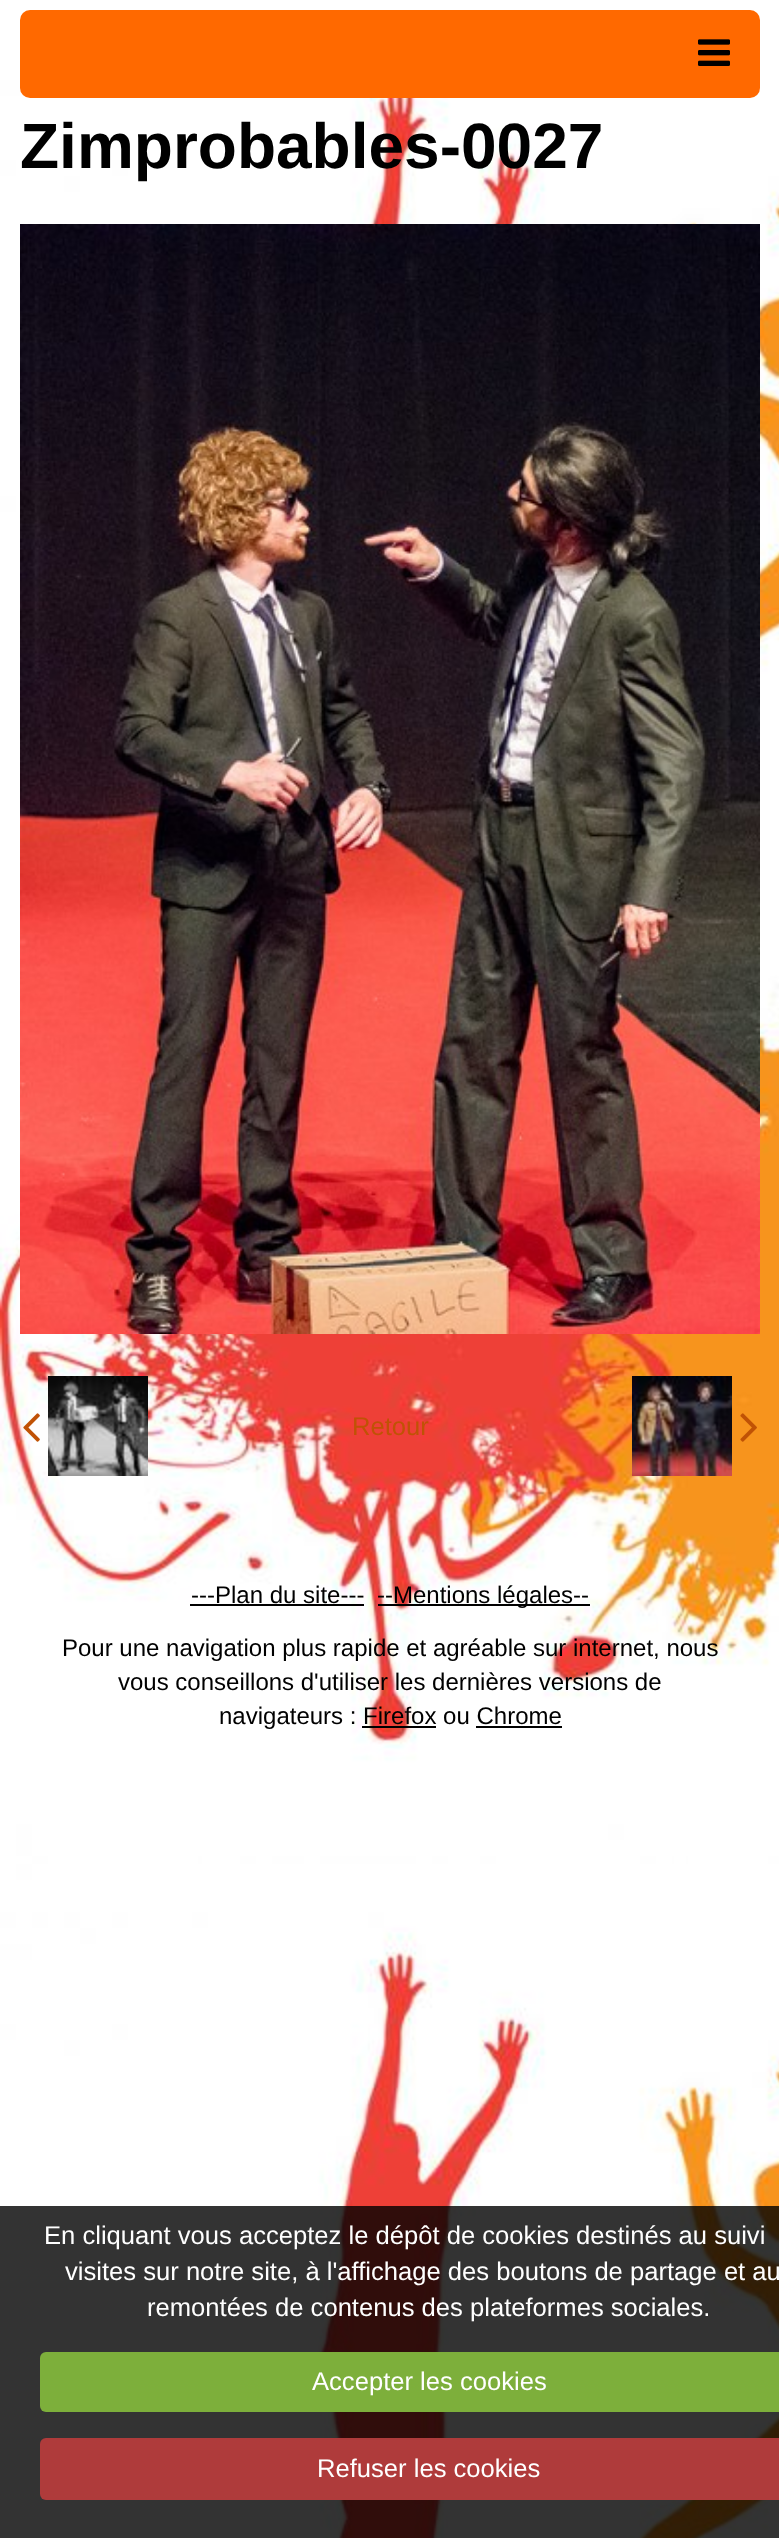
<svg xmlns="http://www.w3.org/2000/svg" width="779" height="2538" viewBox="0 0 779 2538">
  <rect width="100%" height="100%" fill="#ffffff"/>
  <image x="0" y="65" width="779" height="2473" href="img1.png"/>
  <rect x="20" y="10" width="740" height="88" rx="10" fill="#ff6900"/>
  <image x="698" y="39" width="32" height="27" href="img2.png"/>
  <text x="20" y="168" font-family="Liberation Sans" font-size="64" font-weight="bold" fill="#000000">Zimprobables-0027</text>
  <image x="20" y="224" width="740" height="1110" href="img3.png"/>
  <image x="23" y="1413" width="17" height="29" href="img4.png"/>
  <image x="48" y="1376" width="100" height="100" href="img5.png"/>
  <text x="352" y="1435" font-family="Liberation Sans" font-size="25.6" fill="#c05205">Retour</text>
  <image x="632" y="1376" width="100" height="100" href="img6.png"/>
  <image x="740" y="1413" width="17" height="29" href="img7.png"/>
  <text x="191" y="1603" font-family="Liberation Sans" font-size="24" fill="#000000">---Plan du site---</text>
  <rect x="190" y="1604" width="174" height="2" fill="#000000"/>
  <rect x="378" y="1604" width="212" height="2" fill="#000000"/>
  <text x="377" y="1603" font-family="Liberation Sans" font-size="24" fill="#000000">--Mentions légales--</text>
  <text x="62" y="1656" font-family="Liberation Sans" font-size="24" fill="#000000">Pour une navigation plus rapide et agréable sur internet, nous</text>
  <text x="118" y="1690" font-family="Liberation Sans" font-size="24" fill="#000000">vous conseillons d'utiliser les dernières versions de</text>
  <text x="219" y="1724" font-family="Liberation Sans" font-size="24" fill="#000000">navigateurs : Firefox ou Chrome</text>
  <rect x="362" y="1726" width="74" height="2" fill="#000000"/>
  <rect x="476" y="1726" width="86" height="2" fill="#000000"/>
  <rect x="0" y="2206" width="779" height="332" fill="#000000" fill-opacity="0.8"/>
  <text x="44" y="2244" font-family="Liberation Sans" font-size="25.6" fill="#ffffff">En cliquant vous acceptez le dépôt de cookies destinés au suivi</text>
  <text x="65" y="2280" font-family="Liberation Sans" font-size="25.6" fill="#ffffff">visites sur notre site, à l'affichage des boutons de partage et au</text>
  <text x="147" y="2316" font-family="Liberation Sans" font-size="25.6" fill="#ffffff">remontées de contenus des plateformes sociales.</text>
  <rect x="40" y="2352" width="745" height="60" rx="6" fill="#7daf3b"/>
  <text x="312" y="2390" font-family="Liberation Sans" font-size="25.6" fill="#ffffff">Accepter les cookies</text>
  <rect x="40" y="2438" width="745" height="62" rx="6" fill="#af3b3b"/>
  <text x="317" y="2477" font-family="Liberation Sans" font-size="25.6" fill="#ffffff">Refuser les cookies</text>
</svg>
